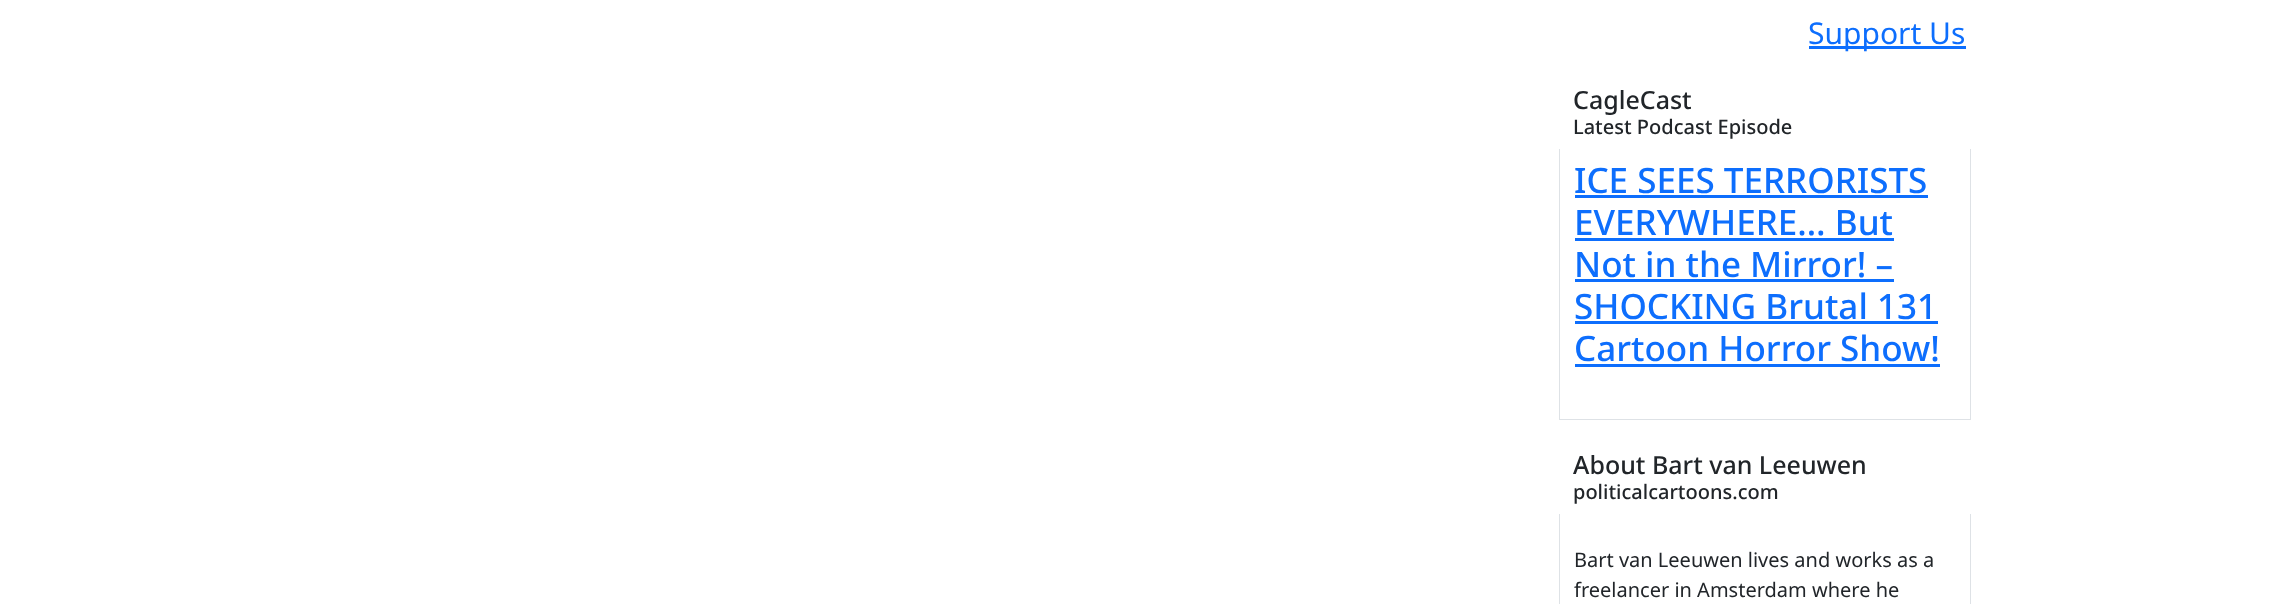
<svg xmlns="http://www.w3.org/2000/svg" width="2291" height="604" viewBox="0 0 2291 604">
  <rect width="100%" height="100%" fill="#ffffff"/>
  <rect x="1809" y="46" width="157" height="3" fill="#0d6efd"/>
  <text x="1808" y="44" font-family="Noto Sans" font-size="30" fill="#0d6efd">Support Us</text>
  <rect x="1559" y="419" width="412" height="1" fill="#dee2e6"/>
  <text x="1573" y="109" font-family="Noto Sans" font-size="25" font-weight="500" fill="#212529">CagleCast</text>
  <text x="1573" y="134" font-family="Noto Sans" font-size="20" font-weight="500" fill="#212529">Latest Podcast Episode</text>
  <rect x="1970" y="149" width="1" height="270" fill="#dee2e6"/>
  <rect x="1559" y="149" width="1" height="270" fill="#dee2e6"/>
  <text x="1574" y="193" font-family="Noto Sans" font-size="35" font-weight="500" fill="#0d6efd">ICE SEES TERRORISTS</text>
  <rect x="1575" y="195" width="353" height="3" fill="#0d6efd"/>
  <text x="1574" y="235" font-family="Noto Sans" font-size="35" font-weight="500" fill="#0d6efd">EVERYWHERE… But</text>
  <rect x="1575" y="238" width="319" height="3" fill="#0d6efd"/>
  <text x="1574" y="277" font-family="Noto Sans" font-size="35" font-weight="500" fill="#0d6efd">Not in the Mirror! –</text>
  <rect x="1575" y="279" width="319" height="3" fill="#0d6efd"/>
  <text x="1574" y="319" font-family="Noto Sans" font-size="35" font-weight="500" fill="#0d6efd">SHOCKING Brutal 131</text>
  <rect x="1575" y="321" width="363" height="3" fill="#0d6efd"/>
  <text x="1574" y="361" font-family="Noto Sans" font-size="35" font-weight="500" fill="#0d6efd">Cartoon Horror Show!</text>
  <rect x="1575" y="364" width="365" height="3" fill="#0d6efd"/>
  <text x="1573" y="474" font-family="Noto Sans" font-size="25" font-weight="500" fill="#212529">About Bart van Leeuwen</text>
  <text x="1573" y="499" font-family="Noto Sans" font-size="20" font-weight="500" fill="#212529">politicalcartoons.com</text>
  <rect x="1970" y="514" width="1" height="90" fill="#dee2e6"/>
  <rect x="1559" y="514" width="1" height="90" fill="#dee2e6"/>
  <text x="1574" y="567" font-family="Noto Sans" font-size="20" fill="#212529">Bart van Leeuwen lives and works as a</text>
  <text x="1574" y="597" font-family="Noto Sans" font-size="20" fill="#212529">freelancer in Amsterdam where he</text>
</svg>
